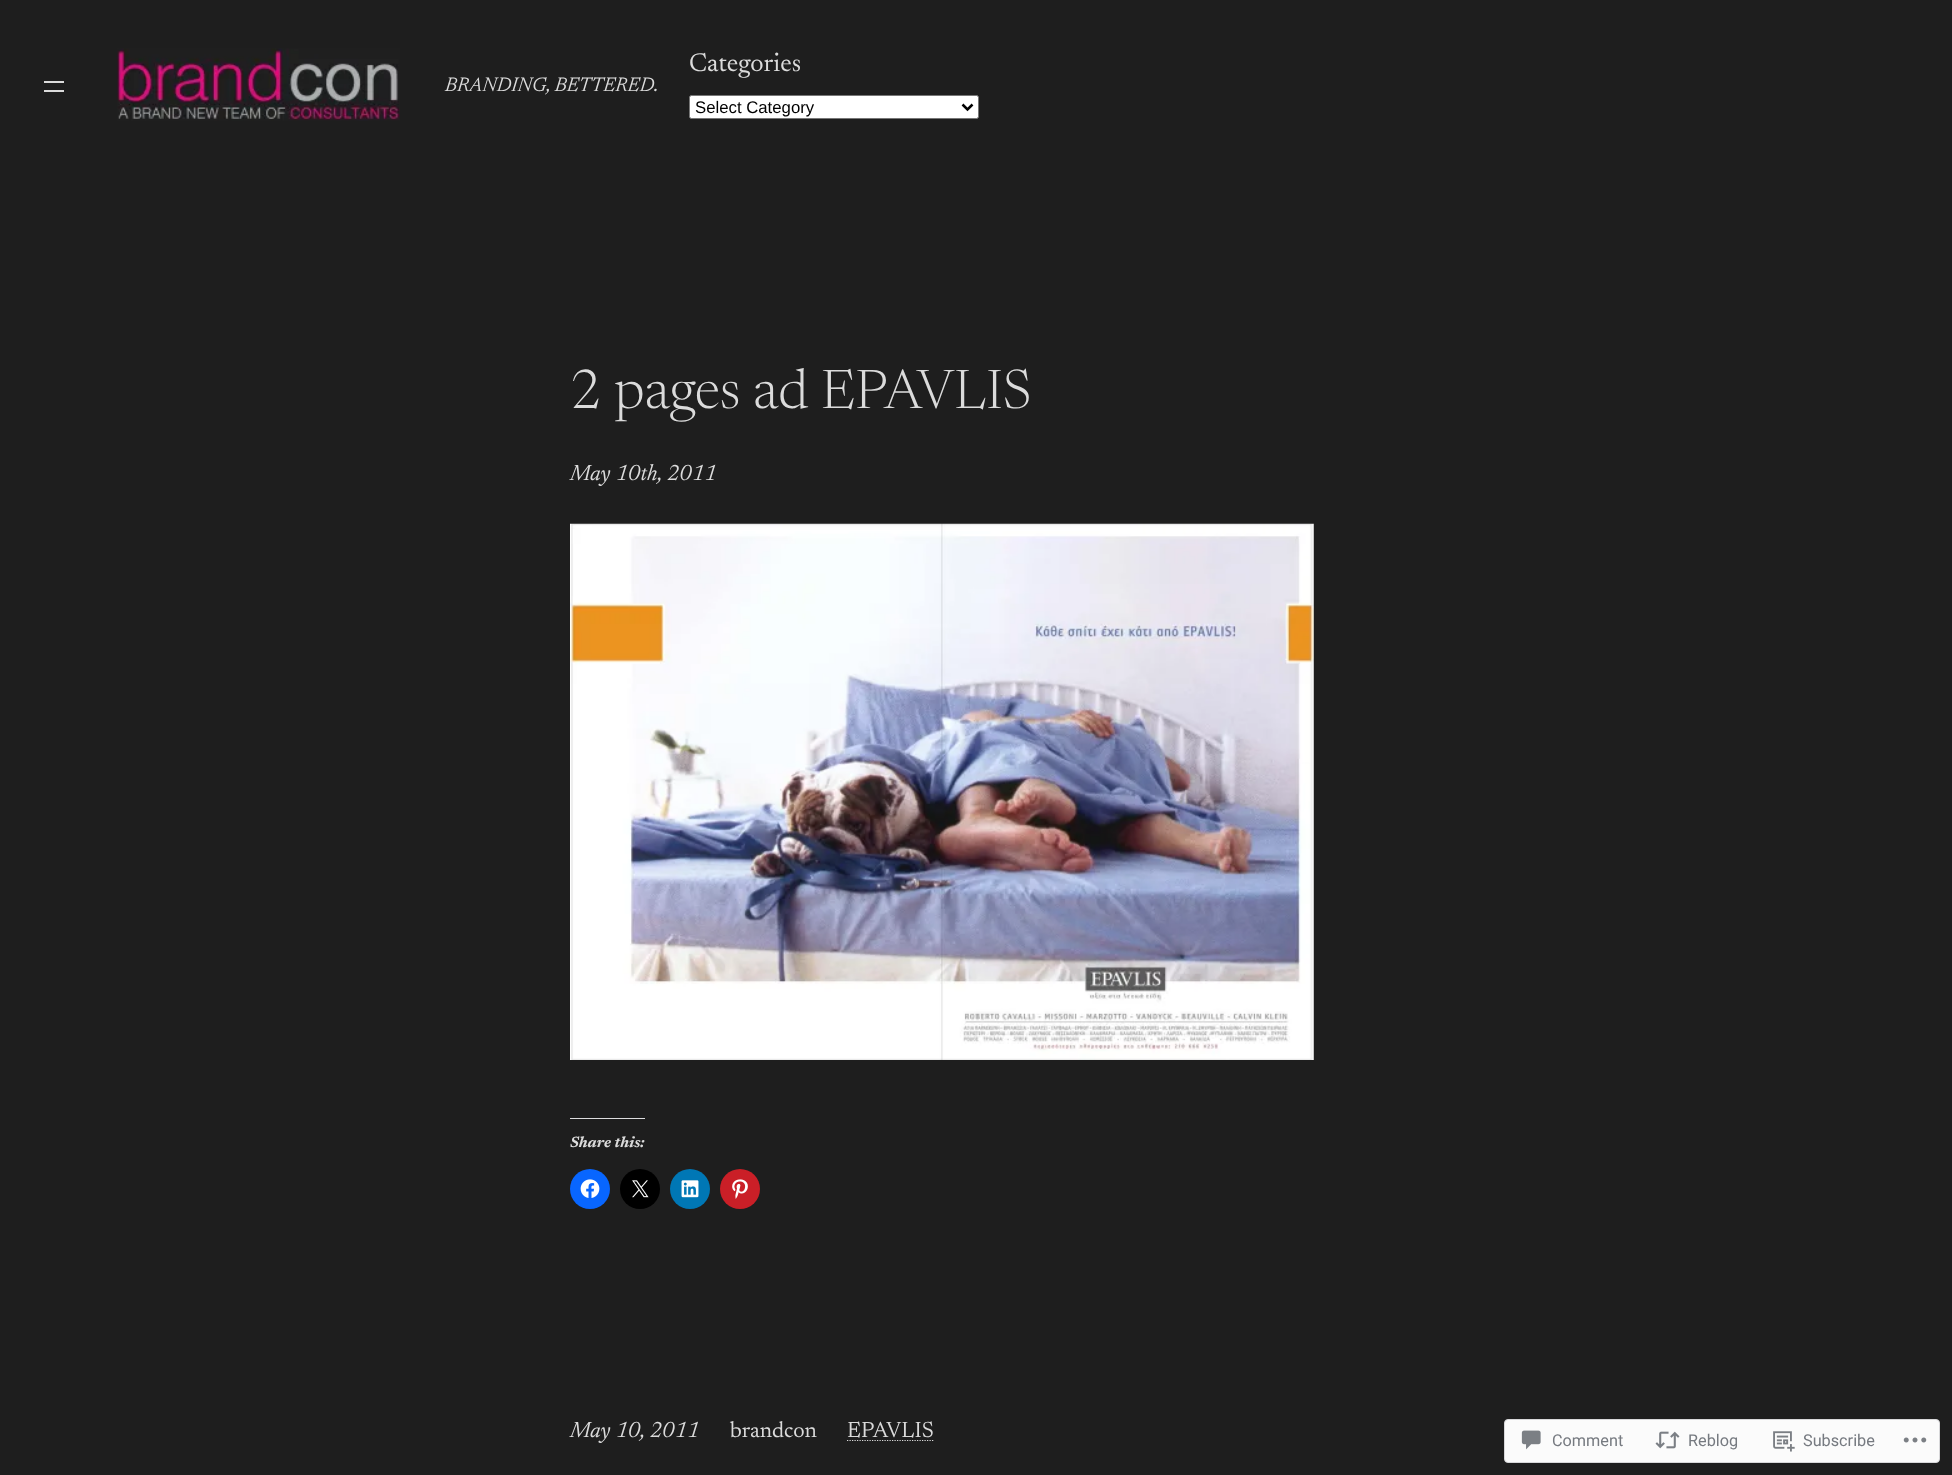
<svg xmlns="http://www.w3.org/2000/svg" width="1952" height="1475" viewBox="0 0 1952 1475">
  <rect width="100%" height="100%" fill="#1e1e1e"/>
  <rect x="44" y="81" width="20" height="2" fill="#dbdbdb"/>
  <rect x="44" y="90" width="20" height="2" fill="#dbdbdb"/>
  <image x="117" y="48" width="283" height="73" href="img1.png"/>
  <text x="445" y="91" font-family="Newsreader" font-size="20" font-style="italic" fill="#dbdbdb">BRANDING, BETTERED.</text>
  <text x="689" y="71" font-family="Newsreader" font-size="26" fill="#dbdbdb">Categories</text>
  <rect x="689.5" y="95.5" width="289" height="23" rx="2" fill="#ffffff" stroke="#767676"/>
  <path d="M962.5 104.5L967.5 109.5L972.5 104.5" fill="none" stroke="#000000" stroke-width="2.5"/>
  <text x="695" y="113" font-family="Liberation Sans" font-size="16.75" fill="#000000">Select Category</text>
  <text x="570" y="408" font-family="Newsreader" font-size="55" font-weight="300" fill="#dbdbdb">2 pages ad EPAVLIS</text>
  <text x="570" y="480" font-family="Newsreader" font-size="22.5" font-style="italic" fill="#dbdbdb">May 10th, 2011</text>
  <image x="570" y="523" width="744" height="537" href="img2.png"/>
  <rect x="570" y="1118" width="75" height="1" fill="#dcdcde"/>
  <text x="570" y="1147" font-family="Newsreader" font-size="15" font-weight="bold" font-style="italic" fill="#dbdbdb">Share this:</text>
  <circle cx="590" cy="1189" r="20" fill="#0866ff"/>
  <image x="580" y="1179" width="20" height="19" href="img3.png"/>
  <circle cx="640" cy="1189" r="20" fill="#000000"/>
  <image x="632" y="1180" width="17" height="18" href="img4.png"/>
  <circle cx="690" cy="1189" r="20" fill="#0077b5"/>
  <image x="681" y="1180" width="18" height="18" href="img5.png"/>
  <circle cx="740" cy="1189" r="20" fill="#ca1f27"/>
  <image x="732" y="1179" width="16" height="20" href="img6.png"/>
  <text x="570" y="1437" font-family="Newsreader" font-size="22.5" font-style="italic" fill="#dbdbdb">May 10, 2011</text>
  <text x="730" y="1437" font-family="'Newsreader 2'" font-size="22.5" fill="#dbdbdb">brandcon</text>
  <text x="847" y="1437" font-family="'Newsreader 2'" font-size="22.5" fill="#dbdbdb">EPAVLIS</text>
  <path d="M847 1440.5H933.5" fill="none" stroke="#dbdbdb" stroke-width="1.2" stroke-dasharray="1.25 1.25"/>
  <rect x="1504.5" y="1419.5" width="435" height="43" rx="3.5" fill="#fbfbfb" stroke="#d8d8da"/>
  <image x="1521" y="1430" width="20" height="20" href="img7.png"/>
  <text x="1552" y="1446" font-family="Roboto" font-size="16.25" fill="#767a80">Comment</text>
  <image x="1655" y="1431" width="25" height="18" href="img8.png"/>
  <text x="1688" y="1446" font-family="Roboto" font-size="16.25" fill="#767a80">Reblog</text>
  <image x="1773" y="1431" width="22" height="21" href="img9.png"/>
  <text x="1803" y="1446" font-family="Roboto" font-size="16.25" fill="#767a80">Subscribe</text>
  <image x="1903" y="1437" width="24" height="6" href="img10.png"/>
</svg>
